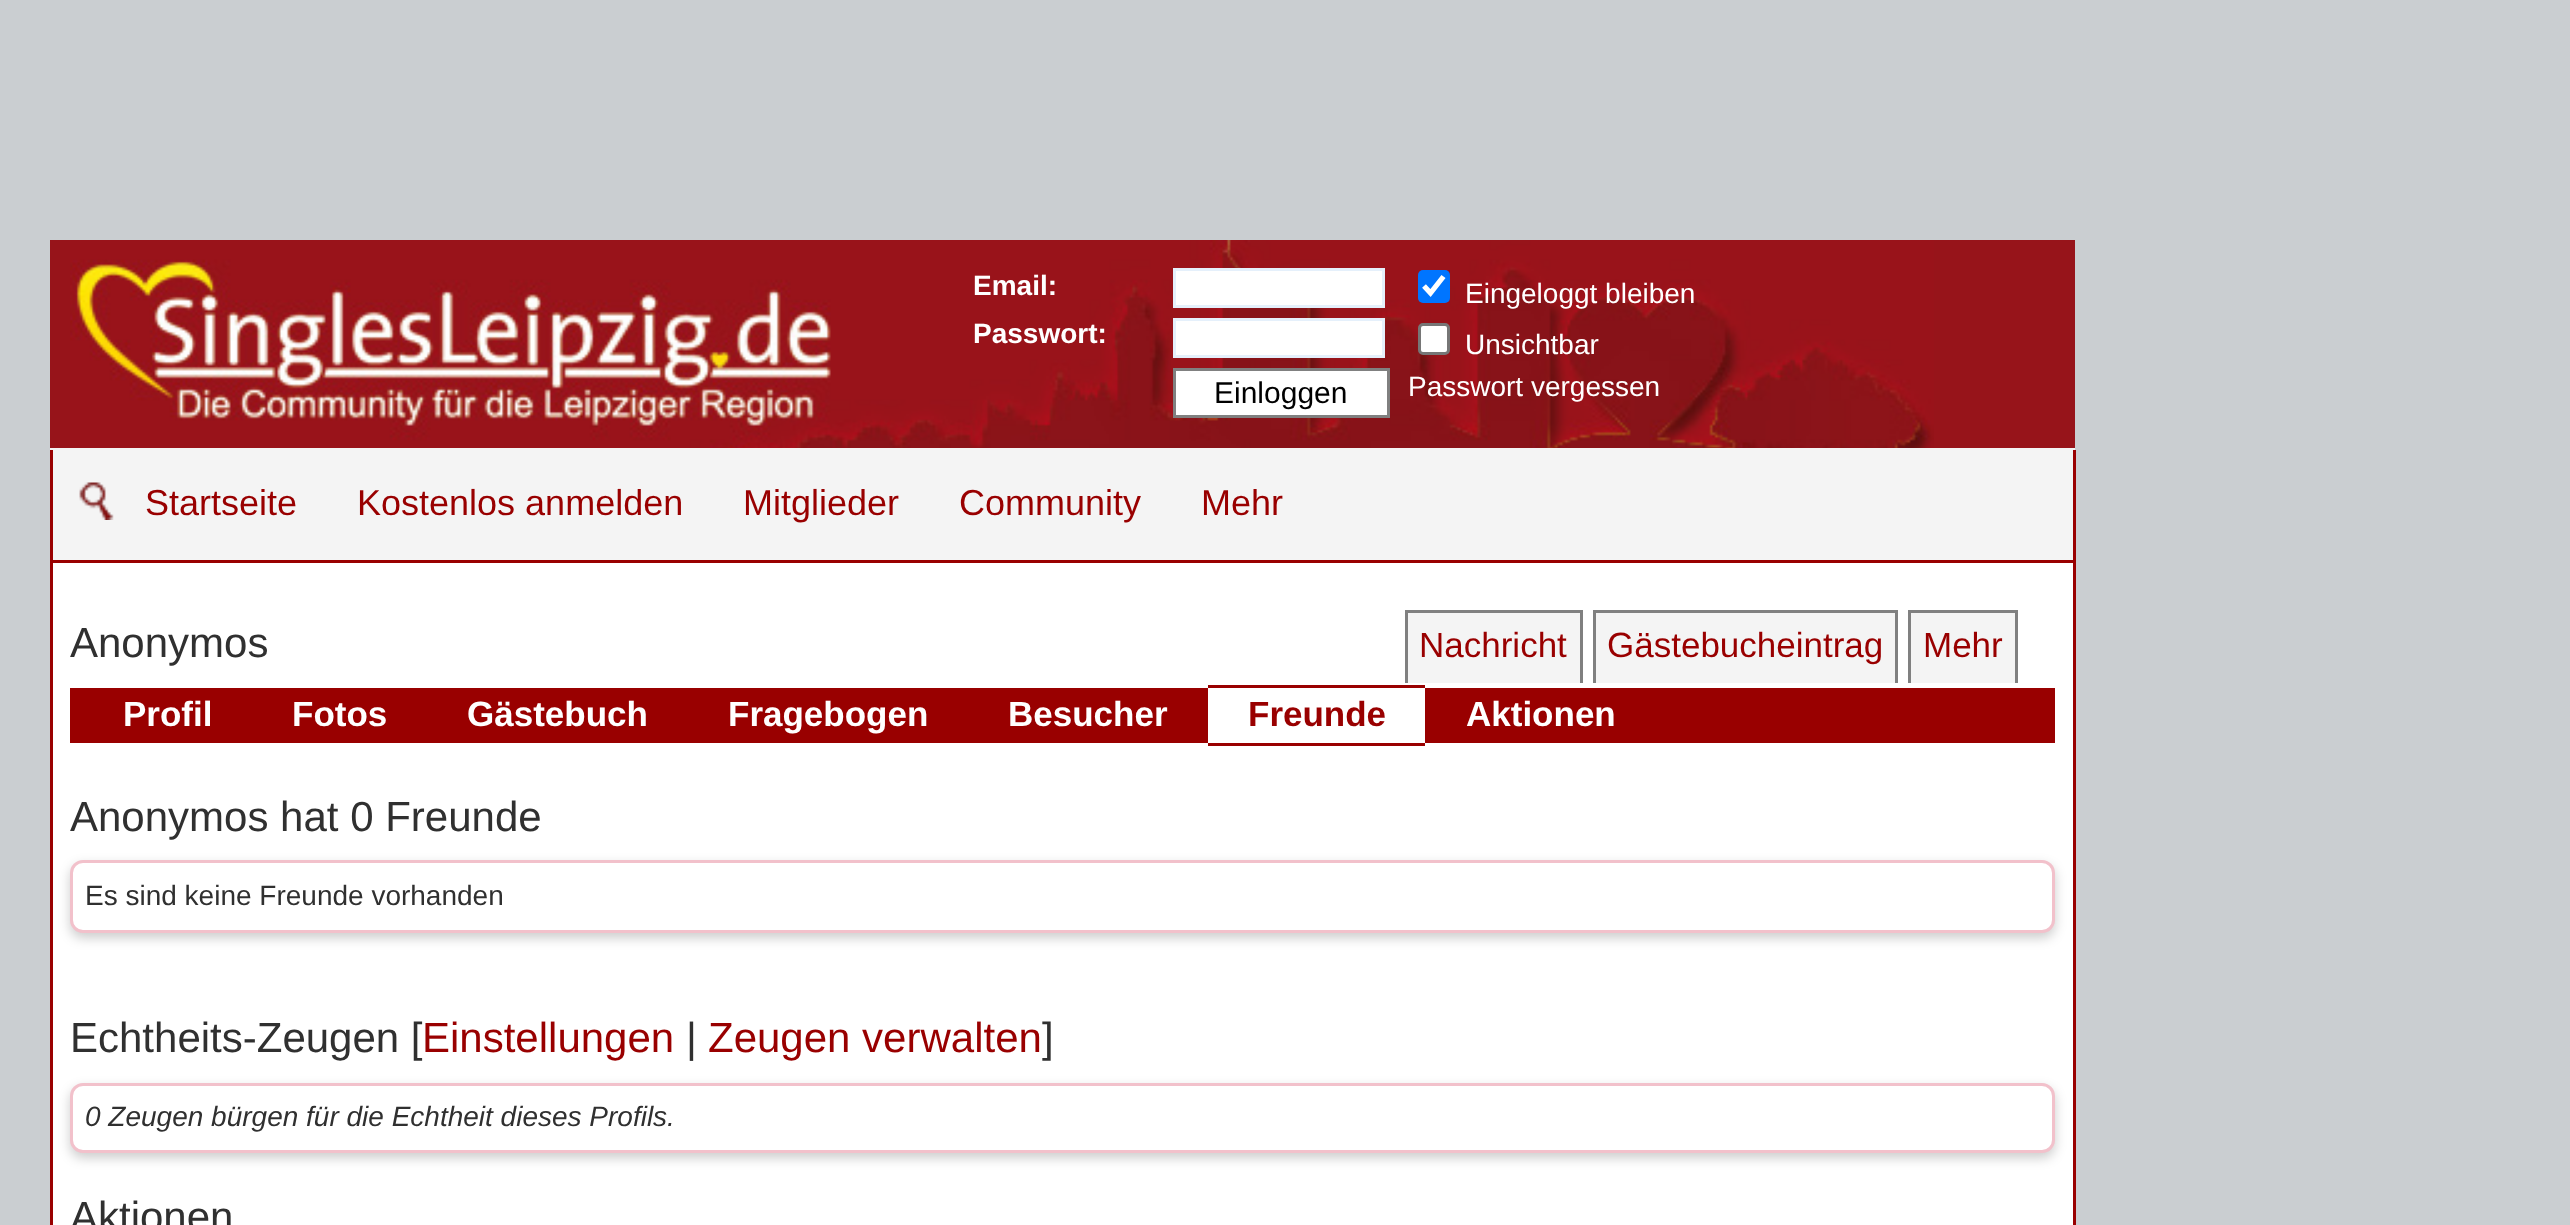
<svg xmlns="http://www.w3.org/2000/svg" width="2570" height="1225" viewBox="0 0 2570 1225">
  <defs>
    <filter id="blur1" x="-50%" y="-200%" width="200%" height="500%"><feGaussianBlur stdDeviation="6"/></filter>
  </defs>
  <rect width="100%" height="100%" fill="#caced1"/>
  <rect x="50" y="240" width="2025" height="208" fill="#97141a"/>
  <image x="70" y="240" width="1864" height="208" href="img1.png"/>
  <rect x="50" y="448" width="2025" height="2" fill="#f4f4f4"/>
  <text x="973" y="295" font-family="Liberation Sans" font-size="28" font-weight="bold" fill="#ffffff">Email:</text>
  <text x="973" y="343" font-family="Liberation Sans" font-size="28" font-weight="bold" fill="#ffffff">Passwort:</text>
  <rect x="1174.5" y="269.5" width="209" height="37" fill="#ffffff" stroke="#e5f0fb" stroke-width="3"/>
  <rect x="1174.5" y="319.5" width="209" height="37" fill="#ffffff" stroke="#e5f0fb" stroke-width="3"/>
  <rect x="1174.5" y="369.5" width="214" height="47" fill="#ffffff" stroke="#808080" stroke-width="3"/>
  <text x="1214" y="403" font-family="Liberation Sans" font-size="30" fill="#000000">Einloggen</text>
  <rect x="1418" y="270" width="32" height="33" rx="5" fill="#0075ff"/>
  <path d="M1424 286L1430.5 293L1443.5 276.5" fill="none" stroke="#ffffff" stroke-width="5.2"/>
  <text x="1465" y="303" font-family="Liberation Sans" font-size="28" fill="#ffffff">Eingeloggt bleiben</text>
  <rect x="1419.5" y="324.5" width="29" height="29" rx="3.5" fill="#ffffff" stroke="#767676" stroke-width="3"/>
  <text x="1465" y="354" font-family="Liberation Sans" font-size="28" fill="#ffffff">Unsichtbar</text>
  <text x="1408" y="396" font-family="Liberation Sans" font-size="28" fill="#ffffff">Passwort vergessen</text>
  <rect x="53" y="450" width="2020" height="110" fill="#f4f4f4"/>
  <rect x="2073" y="450" width="3" height="775" fill="#990000"/>
  <rect x="50" y="560" width="2025" height="3" fill="#990000"/>
  <rect x="50" y="450" width="3" height="113" fill="#990000"/>
  <image x="79" y="482" width="35" height="38" href="img2.png"/>
  <text x="145" y="515" font-family="Liberation Sans" font-size="36" fill="#990000">Startseite</text>
  <text x="357" y="515" font-family="Liberation Sans" font-size="36" fill="#990000">Kostenlos anmelden</text>
  <text x="743" y="515" font-family="Liberation Sans" font-size="36" fill="#990000">Mitglieder</text>
  <text x="959" y="515" font-family="Liberation Sans" font-size="36" fill="#990000">Community</text>
  <text x="1201" y="515" font-family="Liberation Sans" font-size="36" fill="#990000">Mehr</text>
  <rect x="50" y="563" width="3" height="662" fill="#990000"/>
  <rect x="53" y="563" width="2020" height="662" fill="#ffffff"/>
  <text x="70" y="657" font-family="Liberation Sans" font-size="42" fill="#303030">Anonymos</text>
  <rect x="1408" y="613" width="172" height="70" fill="#f4f4f4"/>
  <text x="1419" y="657" font-family="Liberation Sans" font-size="35" fill="#990000">Nachricht</text>
  <rect x="1405" y="610" width="178" height="3" fill="#808080"/>
  <rect x="1580" y="610" width="3" height="73" fill="#808080"/>
  <rect x="1405" y="610" width="3" height="73" fill="#808080"/>
  <rect x="1596" y="613" width="299" height="70" fill="#f4f4f4"/>
  <text x="1607" y="657" font-family="Liberation Sans" font-size="35" fill="#990000">Gästebucheintrag</text>
  <rect x="1593" y="610" width="305" height="3" fill="#808080"/>
  <rect x="1895" y="610" width="3" height="73" fill="#808080"/>
  <rect x="1593" y="610" width="3" height="73" fill="#808080"/>
  <rect x="1911" y="613" width="104" height="70" fill="#f4f4f4"/>
  <text x="1923" y="657" font-family="Liberation Sans" font-size="35" fill="#990000">Mehr</text>
  <rect x="1908" y="610" width="110" height="3" fill="#808080"/>
  <rect x="2015" y="610" width="3" height="73" fill="#808080"/>
  <rect x="1908" y="610" width="3" height="73" fill="#808080"/>
  <rect x="70" y="688" width="1985" height="55" fill="#990000"/>
  <text x="123" y="726" font-family="Liberation Sans" font-size="35" font-weight="bold" fill="#ffffff">Profil</text>
  <text x="292" y="726" font-family="Liberation Sans" font-size="35" font-weight="bold" fill="#ffffff">Fotos</text>
  <text x="467" y="726" font-family="Liberation Sans" font-size="35" font-weight="bold" fill="#ffffff">Gästebuch</text>
  <text x="728" y="726" font-family="Liberation Sans" font-size="35" font-weight="bold" fill="#ffffff">Fragebogen</text>
  <text x="1008" y="726" font-family="Liberation Sans" font-size="35" font-weight="bold" fill="#ffffff">Besucher</text>
  <rect x="1208" y="688" width="217" height="55" fill="#ffffff"/>
  <rect x="1208" y="685" width="217" height="3" fill="#990000"/>
  <rect x="1208" y="743" width="217" height="3" fill="#990000"/>
  <text x="1248" y="726" font-family="Liberation Sans" font-size="35" font-weight="bold" fill="#990000">Freunde</text>
  <text x="1466" y="726" font-family="Liberation Sans" font-size="35" font-weight="bold" fill="#ffffff">Aktionen</text>
  <text x="70" y="831" font-family="Liberation Sans" font-size="42" fill="#303030">Anonymos hat 0 Freunde</text>
  <rect x="70" y="865" width="1985" height="73" rx="13" fill="#000000" fill-opacity="0.2" filter="url(#blur1)"/>
  <rect x="71.5" y="861.5" width="1982" height="70" rx="11.5" fill="#ffffff" stroke="#f2c1cb" stroke-width="3"/>
  <text x="85" y="905" font-family="Liberation Sans" font-size="28" fill="#303030">Es sind keine Freunde vorhanden</text>
  <text x="70" y="1052" font-family="Liberation Sans" font-size="42" fill="#303030">Echtheits-Zeugen [</text>
  <text x="422" y="1052" font-family="Liberation Sans" font-size="42" fill="#990000">Einstellungen</text>
  <text x="686" y="1052" font-family="Liberation Sans" font-size="42" fill="#303030">|</text>
  <text x="708" y="1052" font-family="Liberation Sans" font-size="42" fill="#990000">Zeugen verwalten</text>
  <text x="1042" y="1052" font-family="Liberation Sans" font-size="42" fill="#303030">]</text>
  <rect x="70" y="1088" width="1985" height="70" rx="13" fill="#000000" fill-opacity="0.2" filter="url(#blur1)"/>
  <rect x="71.5" y="1084.5" width="1982" height="67" rx="11.5" fill="#ffffff" stroke="#f2c1cb" stroke-width="3"/>
  <text x="85" y="1126" font-family="Liberation Sans" font-size="28" font-style="italic" fill="#303030">0 Zeugen bürgen für die Echtheit dieses Profils.</text>
  <text x="70" y="1231" font-family="Liberation Sans" font-size="42" fill="#303030">Aktionen</text>
</svg>
